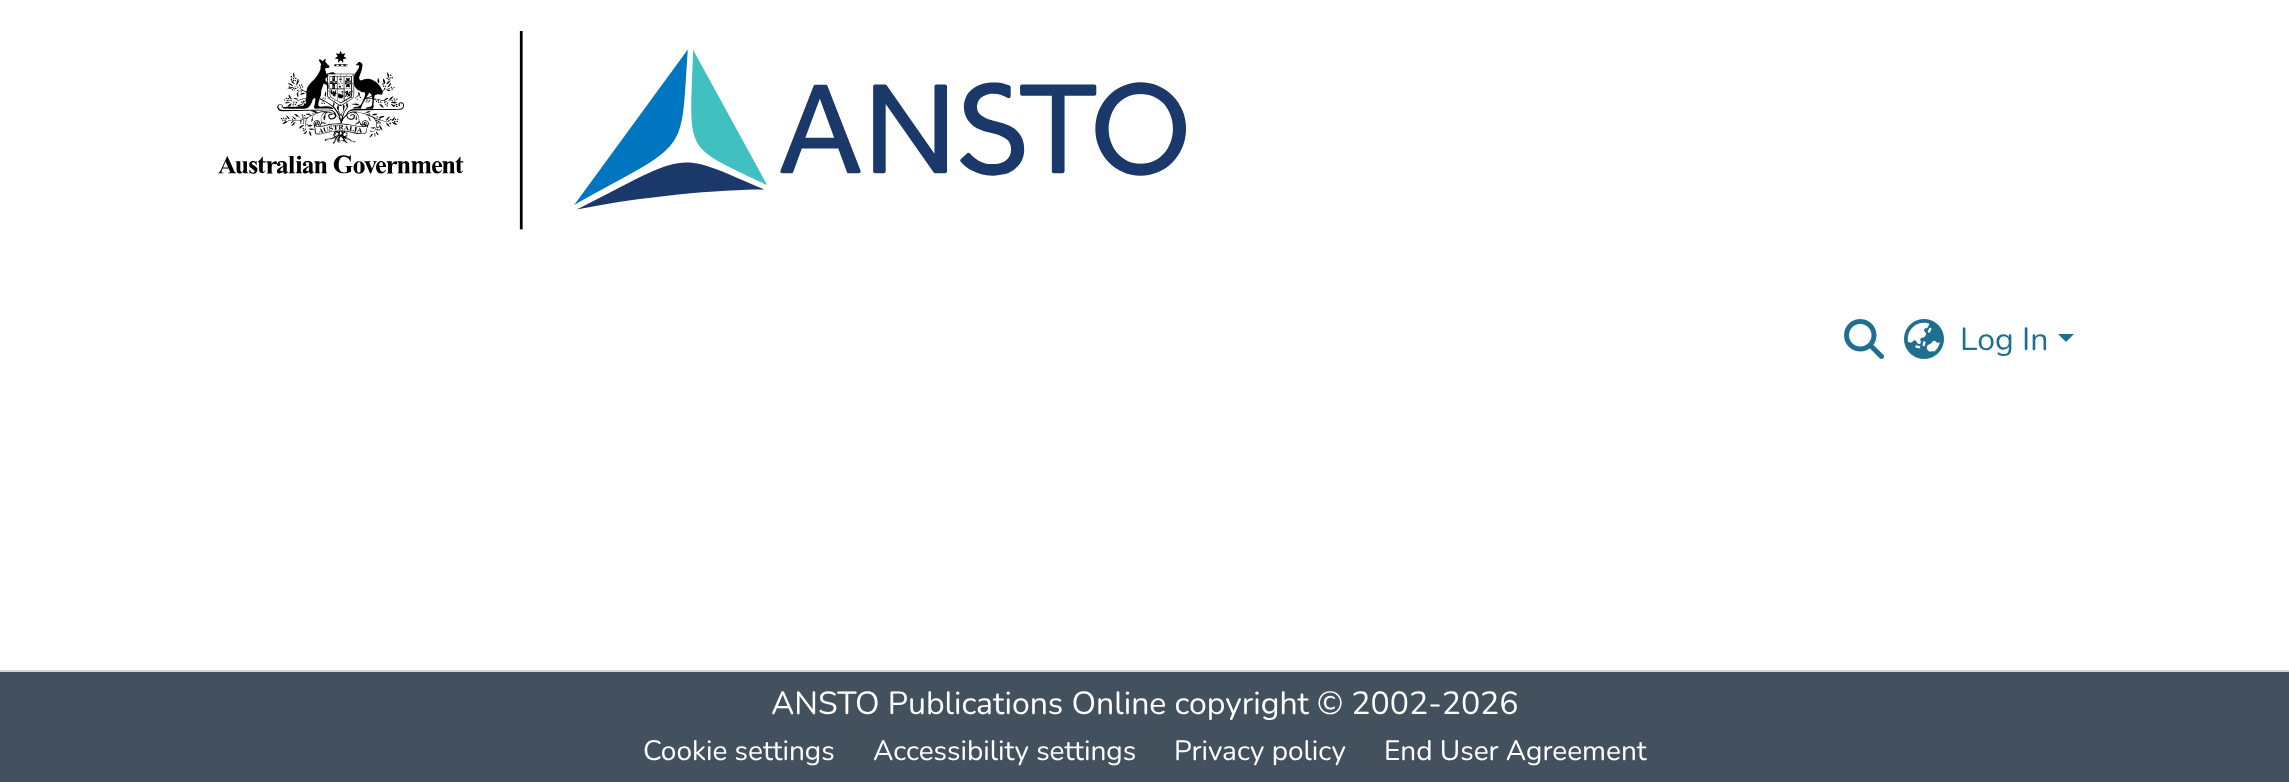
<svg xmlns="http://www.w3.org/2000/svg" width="2289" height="782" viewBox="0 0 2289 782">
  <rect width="100%" height="100%" fill="#ffffff"/>
  <image x="218" y="31" width="968" height="199" href="img1.png"/>
  <image x="1844" y="319" width="40" height="40" href="img2.png"/>
  <image x="1904" y="319" width="40" height="40" href="img3.png"/>
  <text x="1960" y="350" font-family="Nunito" font-size="32" fill="#1e6f90">Log In</text>
  <path d="M2058 334H2074L2066 342Z" fill="#1e6f90"/>
  <rect x="0" y="672" width="2289" height="110" fill="#43515f"/>
  <rect x="0" y="670" width="2289" height="2" fill="#ced4da"/>
  <text x="771" y="714" font-family="Nunito" font-size="32" fill="#ffffff">ANSTO Publications Online copyright © 2002-2026</text>
  <text x="643" y="760" font-family="Nunito" font-size="28" fill="#ffffff">Cookie settings</text>
  <rect x="854" y="728" width="2" height="46" fill="#495057"/>
  <text x="873" y="760" font-family="Nunito" font-size="28" fill="#ffffff">Accessibility settings</text>
  <rect x="1154" y="728" width="2" height="46" fill="#495057"/>
  <text x="1174" y="760" font-family="Nunito" font-size="28" fill="#ffffff">Privacy policy</text>
  <rect x="1364" y="728" width="2" height="46" fill="#495057"/>
  <text x="1384" y="760" font-family="Nunito" font-size="28" fill="#ffffff">End User Agreement</text>
</svg>
